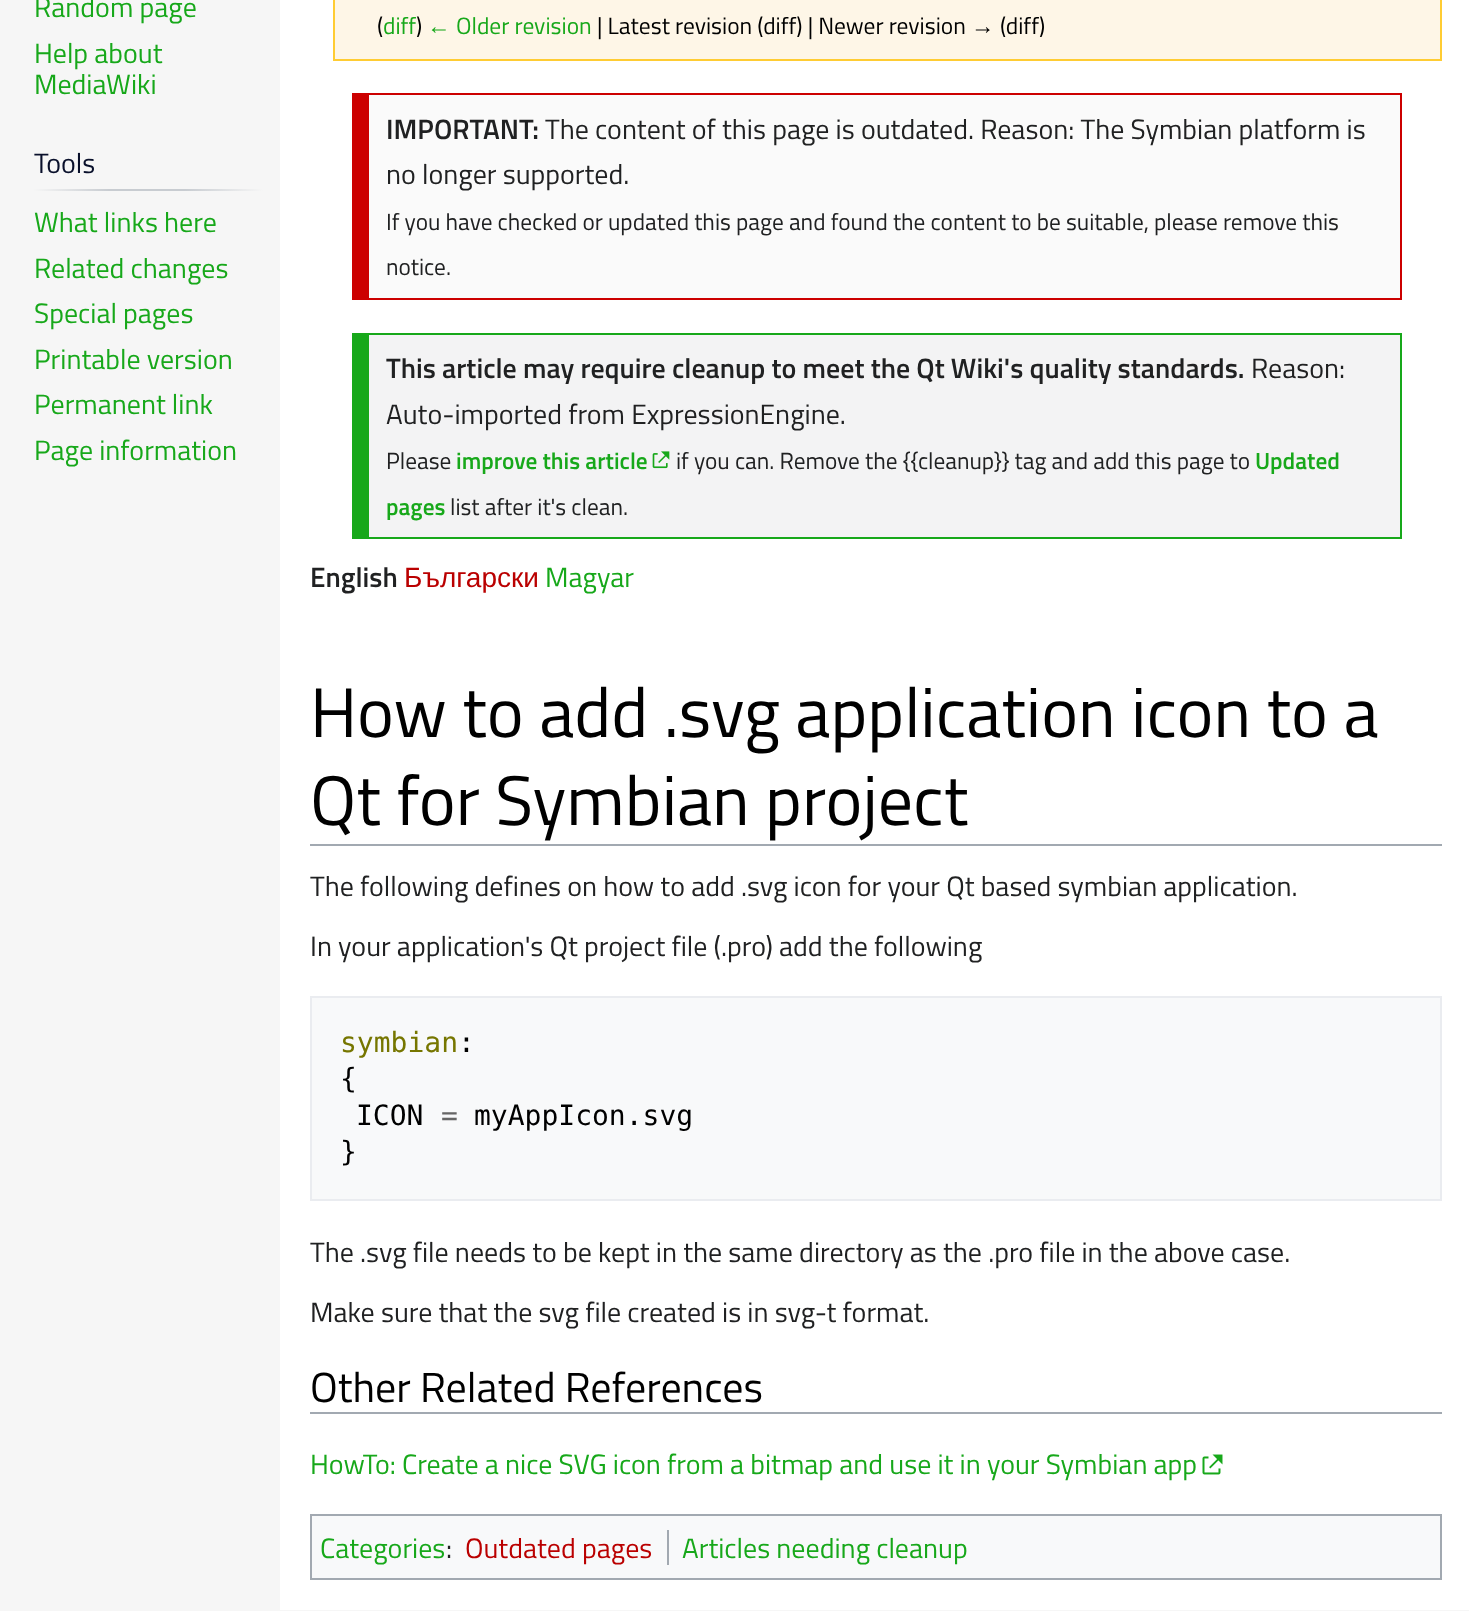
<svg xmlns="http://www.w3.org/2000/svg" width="1469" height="1611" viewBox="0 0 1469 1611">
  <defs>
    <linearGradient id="g1" gradientUnits="userSpaceOnUse" x1="33" y1="190" x2="263" y2="190"><stop offset="0" stop-color="#f6f6f6"/><stop offset="0.33" stop-color="#c8ccd1"/><stop offset="0.66" stop-color="#c8ccd1"/><stop offset="1" stop-color="#f6f6f6"/></linearGradient>
  </defs>
  <rect width="100%" height="100%" fill="#f6f6f6"/>
  <text x="34" y="17" font-family="Titillium Web" font-size="28" fill="#17a81a">Random page</text>
  <text x="34" y="63" font-family="Titillium Web" font-size="28" fill="#17a81a">Help about</text>
  <text x="34" y="94" font-family="Titillium Web" font-size="28" fill="#17a81a">MediaWiki</text>
  <rect x="33" y="189" width="230" height="2" fill="url(#g1)"/>
  <text x="34" y="173" font-family="Titillium Web" font-size="28" fill="#09102b">Tools</text>
  <text x="34" y="232" font-family="Titillium Web" font-size="28" fill="#17a81a">What links here</text>
  <text x="34" y="278" font-family="Titillium Web" font-size="28" fill="#17a81a">Related changes</text>
  <text x="34" y="323" font-family="Titillium Web" font-size="28" fill="#17a81a">Special pages</text>
  <text x="34" y="369" font-family="Titillium Web" font-size="28" fill="#17a81a">Printable version</text>
  <text x="34" y="414" font-family="Titillium Web" font-size="28" fill="#17a81a">Permanent link</text>
  <text x="34" y="460" font-family="Titillium Web" font-size="28" fill="#17a81a">Page information</text>
  <rect x="282" y="0" width="1187" height="1608" fill="#ffffff"/>
  <rect x="280" y="1608" width="1189" height="2" fill="#ffffff"/>
  <rect x="280" y="0" width="2" height="1610" fill="#ffffff"/>
  <rect x="334" y="-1" width="1107" height="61" fill="#fef6e7" stroke="#ffcc33" stroke-width="2"/>
  <text x="377" y="34" font-family="Titillium Web" font-size="23.5" fill="#000000">(</text>
  <text x="383" y="34" font-family="Titillium Web" font-size="23.5" fill="#17a81a">diff</text>
  <text x="416" y="34" font-family="Titillium Web" font-size="23.5" fill="#000000">)</text>
  <text x="427" y="34" font-family="Liberation Sans" font-size="23.5" fill="#17a81a">←</text>
  <text x="456" y="34" font-family="Titillium Web" font-size="23.5" fill="#17a81a">Older revision</text>
  <text x="597" y="34" font-family="Titillium Web" font-size="23.5" fill="#000000">| Latest revision (diff) | Newer revision</text>
  <text x="971" y="34" font-family="Liberation Sans" font-size="23.5" fill="#000000">→</text>
  <text x="1000" y="34" font-family="Titillium Web" font-size="23.5" fill="#000000">(diff)</text>
  <rect x="369" y="95" width="1031" height="203" fill="#fafafa"/>
  <rect x="369" y="93" width="1033" height="2" fill="#cc0000"/>
  <rect x="1400" y="93" width="2" height="206" fill="#cc0000"/>
  <rect x="352" y="298" width="1050" height="2" fill="#cc0000"/>
  <rect x="352" y="93" width="17" height="205" fill="#cc0000"/>
  <text x="386" y="139" font-family="Titillium Web" font-size="28" font-weight="600" fill="#202122">IMPORTANT:</text>
  <text x="545" y="139" font-family="Titillium Web" font-size="28" fill="#202122">The content of this page is outdated. Reason: The Symbian platform is</text>
  <text x="386" y="184" font-family="Titillium Web" font-size="28" fill="#202122">no longer supported.</text>
  <text x="386" y="230" font-family="Titillium Web" font-size="23.35" fill="#202122">If you have checked or updated this page and found the content to be suitable, please remove this</text>
  <text x="386" y="275" font-family="Titillium Web" font-size="23.35" fill="#202122">notice.</text>
  <rect x="369" y="335" width="1031" height="202" fill="#f3f3f4"/>
  <rect x="369" y="333" width="1033" height="2" fill="#17a81a"/>
  <rect x="1400" y="333" width="2" height="206" fill="#17a81a"/>
  <rect x="369" y="537" width="1033" height="2" fill="#17a81a"/>
  <rect x="352" y="333" width="17" height="206" fill="#17a81a"/>
  <text x="386" y="378" font-family="Titillium Web" font-size="28" font-weight="600" fill="#202122">This article may require cleanup to meet the Qt Wiki's quality standards.</text>
  <text x="1251" y="378" font-family="Titillium Web" font-size="28" fill="#202122">Reason:</text>
  <text x="386" y="424" font-family="Titillium Web" font-size="28" fill="#202122">Auto-imported from ExpressionEngine.</text>
  <text x="386" y="469" font-family="Titillium Web" font-size="23.35" fill="#202122">Please</text>
  <text x="456" y="469" font-family="Titillium Web" font-size="23.35" font-weight="600" fill="#17a81a">improve this article</text>
  <image x="652" y="451" width="18" height="18" href="img1.png"/>
  <text x="676" y="469" font-family="Titillium Web" font-size="23.35" fill="#202122">if you can. Remove the {{cleanup}} tag and add this page to</text>
  <text x="1255" y="469" font-family="Titillium Web" font-size="23.35" font-weight="600" fill="#17a81a">Updated</text>
  <text x="386" y="515" font-family="Titillium Web" font-size="23.35" font-weight="600" fill="#17a81a">pages</text>
  <text x="450" y="515" font-family="Titillium Web" font-size="23.35" fill="#202122">list after it's clean.</text>
  <text x="310" y="587" font-family="Titillium Web" font-size="28" font-weight="600" fill="#202122">English</text>
  <text x="404" y="587" font-family="Liberation Sans" font-size="28" fill="#ba0000">Български</text>
  <text x="545" y="587" font-family="Titillium Web" font-size="28" fill="#17a81a">Magyar</text>
  <rect x="310" y="844" width="1132" height="2" fill="#a2a9b1"/>
  <text x="310" y="737" font-family="Titillium Web" font-size="70" fill="#000000">How to add .svg application icon to a</text>
  <text x="310" y="825" font-family="Titillium Web" font-size="70" fill="#000000">Qt for Symbian project</text>
  <text x="310" y="896" font-family="Titillium Web" font-size="28" fill="#202122">The following defines on how to add .svg icon for your Qt based symbian application.</text>
  <text x="310" y="956" font-family="Titillium Web" font-size="28" fill="#202122">In your application's Qt project file (.pro) add the following</text>
  <rect x="311" y="997" width="1130" height="203" fill="#f8f9fa" stroke="#eaecf0" stroke-width="2"/>
  <text x="340" y="1052" font-family="DejaVu Sans Mono" font-size="28" fill="#767600">symbian</text>
  <text x="458" y="1052" font-family="DejaVu Sans Mono" font-size="28" fill="#000000">:</text>
  <text x="340" y="1088" font-family="DejaVu Sans Mono" font-size="28" fill="#000000">{</text>
  <text x="356" y="1125" font-family="DejaVu Sans Mono" font-size="28" fill="#000000">ICON</text>
  <text x="441" y="1125" font-family="DejaVu Sans Mono" font-size="28" fill="#666666">=</text>
  <text x="474" y="1125" font-family="DejaVu Sans Mono" font-size="28" fill="#000000">myAppIcon.svg</text>
  <text x="340" y="1161" font-family="DejaVu Sans Mono" font-size="28" fill="#000000">}</text>
  <text x="310" y="1262" font-family="Titillium Web" font-size="28" fill="#202122">The .svg file needs to be kept in the same directory as the .pro file in the above case.</text>
  <text x="310" y="1322" font-family="Titillium Web" font-size="28" fill="#202122">Make sure that the svg file created is in svg-t format.</text>
  <rect x="310" y="1412" width="1132" height="2" fill="#a2a9b1"/>
  <text x="310" y="1402" font-family="Titillium Web" font-size="42" fill="#000000">Other Related References</text>
  <text x="310" y="1474" font-family="Titillium Web" font-size="28" fill="#17a81a">HowTo: Create a nice SVG icon from a bitmap and use it in your Symbian app</text>
  <image x="1202" y="1454" width="21" height="21" href="img2.png"/>
  <rect x="311" y="1515" width="1130" height="64" fill="#f8f9fa" stroke="#a2a9b1" stroke-width="2"/>
  <text x="320" y="1558" font-family="Titillium Web" font-size="28" fill="#17a81a">Categories</text>
  <text x="446" y="1558" font-family="Titillium Web" font-size="28" fill="#202122">:</text>
  <text x="465" y="1558" font-family="Titillium Web" font-size="28" fill="#ba0000">Outdated pages</text>
  <rect x="667" y="1530" width="2" height="35" fill="#a2a9b1"/>
  <text x="682" y="1558" font-family="Titillium Web" font-size="28" fill="#17a81a">Articles needing cleanup</text>
</svg>
